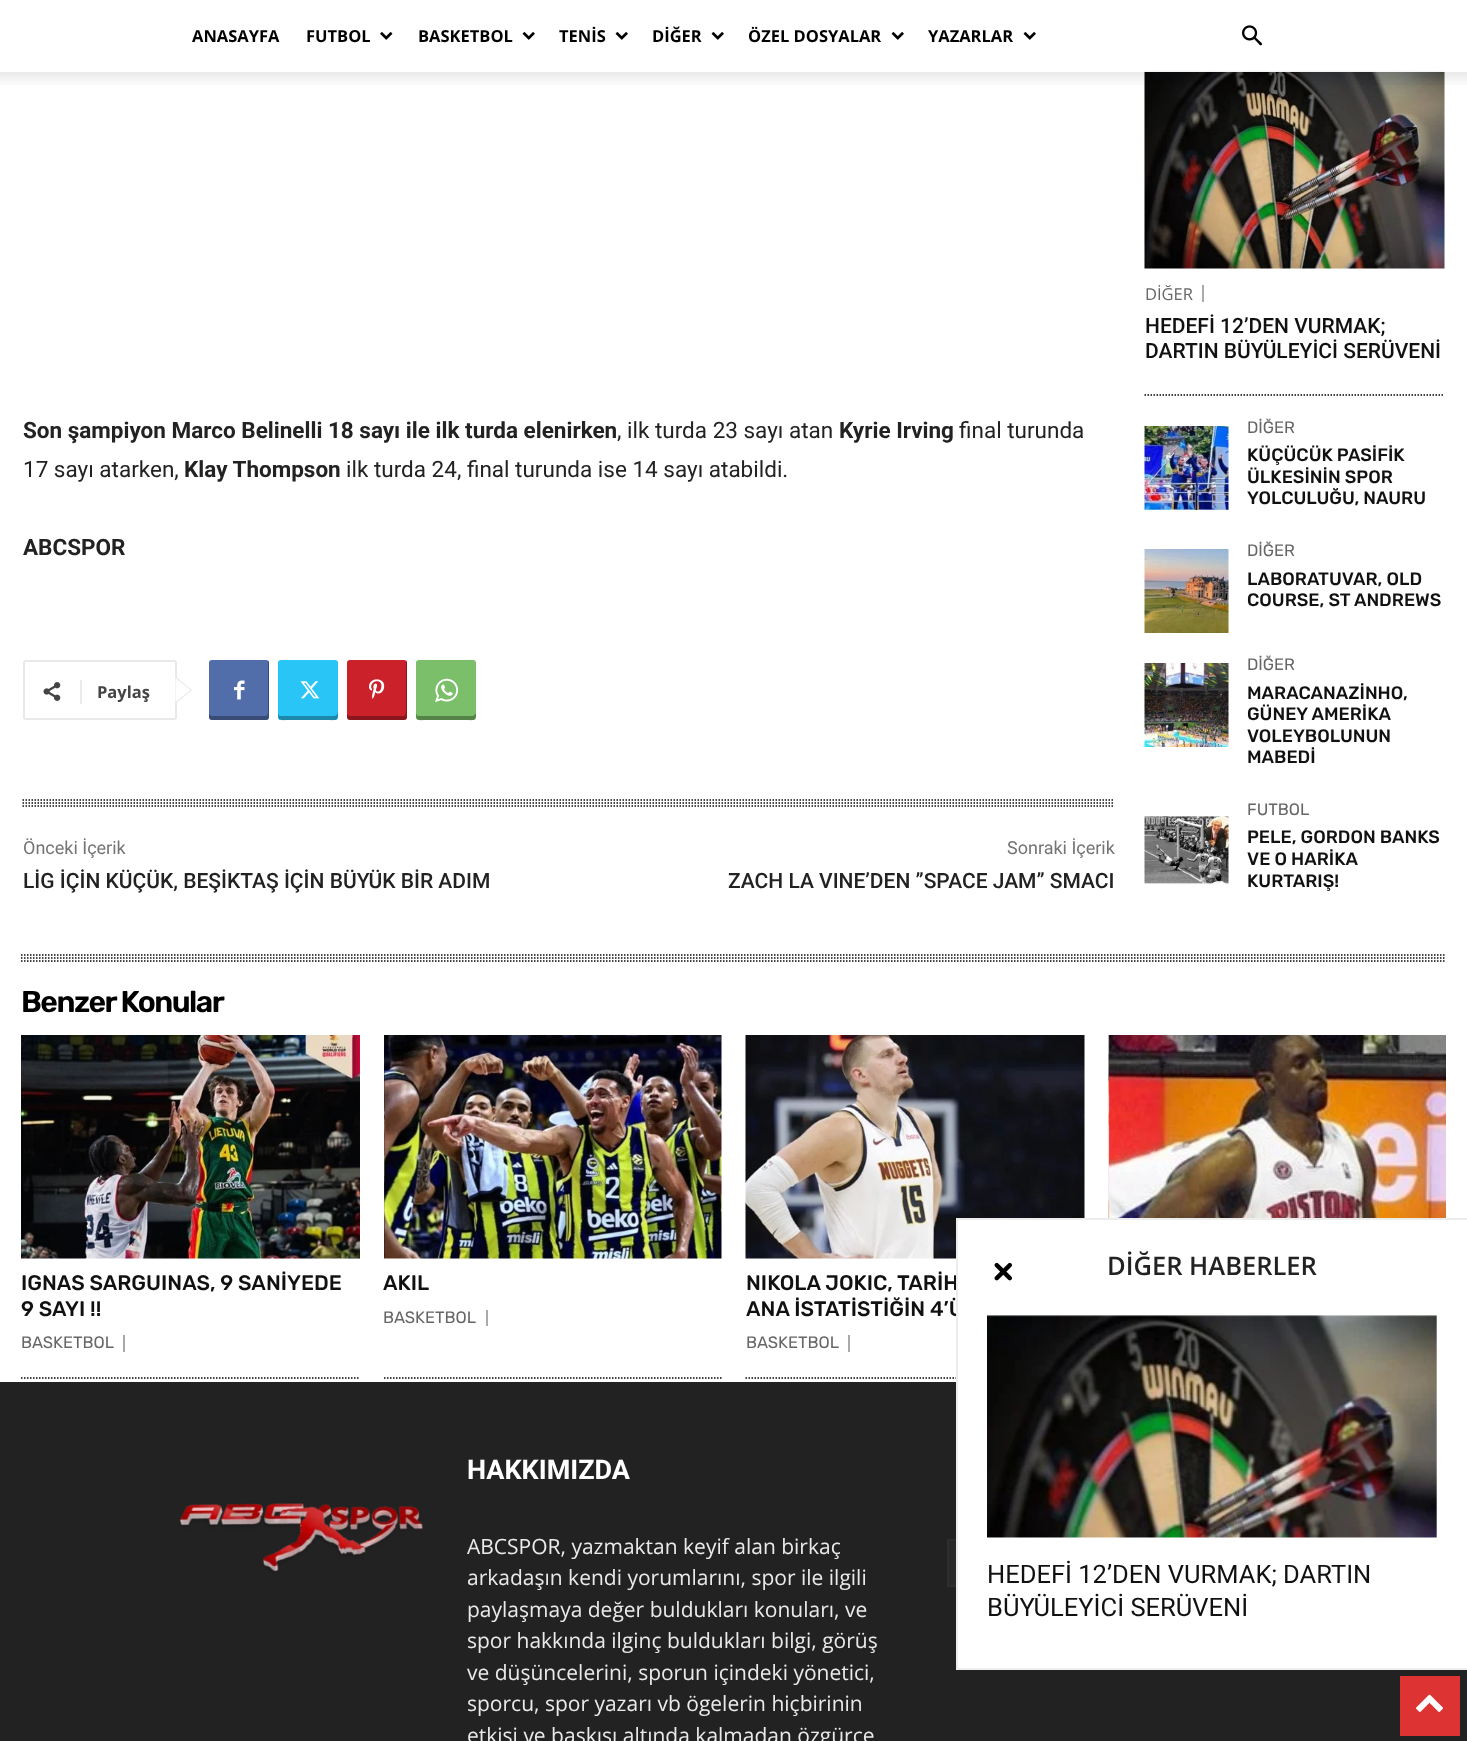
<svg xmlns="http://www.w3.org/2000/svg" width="1467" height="1741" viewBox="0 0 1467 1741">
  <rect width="100%" height="100%" fill="#ffffff"/>
  <image x="1144" y="70" width="301" height="199" href="img10.png"/>
  <rect x="1144" y="70" width="301" height="2" fill="#ffffff" fill-opacity="0.95"/>
  <text x="192" y="42" font-family="Open Sans" font-size="16.5" font-weight="bold" fill="#000000">ANASAYFA</text>
  <text x="306" y="42" font-family="Open Sans" font-size="16.5" font-weight="bold" fill="#000000">FUTBOL</text>
  <image x="380" y="32" width="13" height="8" href="img1.png"/>
  <text x="418" y="42" font-family="Open Sans" font-size="16.5" font-weight="bold" fill="#000000">BASKETBOL</text>
  <image x="522" y="32" width="13" height="8" href="img2.png"/>
  <text x="559" y="42" font-family="Open Sans" font-size="16.5" font-weight="bold" fill="#000000">TENİS</text>
  <image x="615" y="32" width="13" height="8" href="img2.png"/>
  <text x="652" y="42" font-family="Open Sans" font-size="16.5" font-weight="bold" fill="#000000">DİĞER</text>
  <image x="711" y="32" width="13" height="8" href="img2.png"/>
  <text x="748" y="42" font-family="Open Sans" font-size="16.5" font-weight="bold" fill="#000000">ÖZEL DOSYALAR</text>
  <image x="891" y="32" width="13" height="8" href="img2.png"/>
  <text x="928" y="42" font-family="Open Sans" font-size="16.5" font-weight="bold" fill="#000000">YAZARLAR</text>
  <image x="1023" y="32" width="13" height="8" href="img2.png"/>
  <image x="1242" y="25" width="20" height="21" href="img3.png"/>
  <image x="0" y="72" width="1467" height="13" href="img4.png"/>
  <text x="23" y="438" font-family="Roboto" font-size="22.5" font-weight="bold" fill="#222222">Son şampiyon Marco Belinelli 18 sayı ile ilk turda elenirken</text>
  <text x="617" y="438" font-family="Roboto" font-size="22.5" fill="#222222">, ilk turda 23 sayı atan</text>
  <text x="839" y="438" font-family="Roboto" font-size="22.5" font-weight="bold" fill="#222222">Kyrie Irving</text>
  <text x="959" y="438" font-family="Roboto" font-size="22.5" fill="#222222">final turunda</text>
  <text x="23" y="477" font-family="Roboto" font-size="22.5" fill="#222222">17 sayı atarken,</text>
  <text x="184" y="477" font-family="Roboto" font-size="22.5" font-weight="bold" fill="#222222">Klay Thompson</text>
  <text x="346" y="477" font-family="Roboto" font-size="22.5" fill="#222222">ilk turda 24, final turunda ise 14 sayı atabildi.</text>
  <text x="23" y="555" font-family="Roboto" font-size="22.5" font-weight="bold" fill="#222222">ABCSPOR</text>
  <rect x="24" y="661" width="152" height="58" rx="2" fill="none" stroke="#e9e9e9" stroke-width="2"/>
  <path d="M175.5 703.5V676.5L192 690Z" fill="#e9e9e9"/>
  <image x="43" y="682" width="18" height="19" href="img5.png"/>
  <rect x="80" y="680" width="2" height="24" fill="#ebebeb"/>
  <text x="97" y="698" font-family="Open Sans" font-size="16.5" font-weight="bold" fill="#444444">Paylaş</text>
  <path d="M175.5 702V678L190.5 690Z" fill="#ffffff"/>
  <rect x="209" y="660" width="60" height="60" rx="3" fill="#516eab"/>
  <path d="M209 714V717C209 719 210 720 212 720H266C268 720 269 719 269 717V663C269 662 269 661 268 661V712C268 714 267 716 266 716H212C211 716 210 715 209 714Z" fill="#000000" fill-opacity="0.31"/>
  <image x="234" y="680" width="11" height="20" href="img6.png"/>
  <rect x="278" y="660" width="60" height="60" rx="3" fill="#29c5f6"/>
  <path d="M278 712C278 722 279 720 290 720H326C337 720 338 722 338 712C338 714 336 716 334 716H280C279 716 278 714 278 712Z" fill="#000000" fill-opacity="0.31"/>
  <image x="300" y="681" width="20" height="18" href="img7.png"/>
  <rect x="347" y="660" width="60" height="60" rx="3" fill="#ca212a"/>
  <path d="M347 714V717C347 719 348 720 350 720H404C406 720 407 719 407 717V663C407 662 407 661 406 661V712C406 714 405 716 404 716H350C349 716 348 715 347 714Z" fill="#000000" fill-opacity="0.31"/>
  <image x="369" y="679" width="16" height="20" href="img8.png"/>
  <rect x="416" y="660" width="60" height="60" rx="3" fill="#7bbf6a"/>
  <path d="M416 712C416 722 417 720 428 720H464C475 720 476 722 476 712C476 714 474 716 472 716H418C417 716 416 714 416 712Z" fill="#000000" fill-opacity="0.31"/>
  <image x="435" y="678" width="24" height="24" href="img9.png"/>
  <path d="M22.5 800H1114.5" fill="none" stroke="#0a0a0a" stroke-width="1.5" stroke-dasharray="1.5 1.5"/>
  <path d="M22.5 803H1114.5" fill="none" stroke="#0a0a0a" stroke-width="1.5" stroke-dasharray="1.5 1.5"/>
  <path d="M22.5 806H1114.5" fill="none" stroke="#0a0a0a" stroke-width="1.5" stroke-dasharray="1.5 1.5"/>
  <text x="23" y="854" font-family="Roboto" font-size="18" fill="#747474">Önceki İçerik</text>
  <text x="23" y="888" font-family="Roboto" font-size="21" font-weight="500" fill="#222222">LİG İÇİN KÜÇÜK, BEŞİKTAŞ İÇİN BÜYÜK BİR ADIM</text>
  <text x="1007" y="854" font-family="Roboto" font-size="18" fill="#747474">Sonraki İçerik</text>
  <text x="728" y="888" font-family="Roboto" font-size="21" font-weight="500" fill="#222222">ZACH LA VINE’DEN ”SPACE JAM” SMACI</text>
  <path d="M1144.5 395H1444.5" fill="none" stroke="#000000" stroke-width="1.5" stroke-dasharray="1.5 1.5"/>
  <rect x="1202" y="285" width="2" height="17" fill="#aaaaaa"/>
  <text x="1145" y="300" font-family="Open Sans" font-size="16.5" fill="#666666">DİĞER</text>
  <text x="1145" y="333" font-family="Roboto" font-size="21" font-weight="500" fill="#111111">HEDEFİ 12’DEN VURMAK;</text>
  <text x="1145" y="358" font-family="Roboto" font-size="21" font-weight="500" fill="#111111">DARTIN BÜYÜLEYİCİ SERÜVENİ</text>
  <image x="1144" y="426" width="85" height="84" href="img11.png"/>
  <text x="1247" y="433" font-family="Rubik" font-size="16.5" fill="#666666">DİĞER</text>
  <text x="1247" y="461" font-family="Rubik" font-size="18" font-weight="500" fill="#111111">KÜÇÜCÜK PASİFİK</text>
  <text x="1247" y="483" font-family="Rubik" font-size="18" font-weight="500" fill="#111111">ÜLKESİNİN SPOR</text>
  <text x="1247" y="504" font-family="Rubik" font-size="18" font-weight="500" fill="#111111">YOLCULUĞU, NAURU</text>
  <image x="1144" y="549" width="85" height="84" href="img12.png"/>
  <text x="1247" y="556" font-family="Rubik" font-size="16.5" fill="#666666">DİĞER</text>
  <text x="1247" y="585" font-family="Rubik" font-size="18" font-weight="500" fill="#111111">LABORATUVAR, OLD</text>
  <text x="1247" y="606" font-family="Rubik" font-size="18" font-weight="500" fill="#111111">COURSE, ST ANDREWS</text>
  <image x="1144" y="663" width="85" height="84" href="img13.png"/>
  <text x="1247" y="670" font-family="Rubik" font-size="16.5" fill="#666666">DİĞER</text>
  <text x="1247" y="699" font-family="Rubik" font-size="18" font-weight="500" fill="#111111">MARACANAZİNHO,</text>
  <text x="1247" y="720" font-family="Rubik" font-size="18" font-weight="500" fill="#111111">GÜNEY AMERİKA</text>
  <text x="1247" y="742" font-family="Rubik" font-size="18" font-weight="500" fill="#111111">VOLEYBOLUNUN</text>
  <text x="1247" y="763" font-family="Rubik" font-size="18" font-weight="500" fill="#111111">MABEDİ</text>
  <image x="1144" y="816" width="85" height="69" href="img14.png"/>
  <text x="1247" y="815" font-family="Rubik" font-size="16.5" fill="#666666">FUTBOL</text>
  <text x="1247" y="843" font-family="Rubik" font-size="18" font-weight="500" fill="#111111">PELE, GORDON BANKS</text>
  <text x="1247" y="865" font-family="Rubik" font-size="18" font-weight="500" fill="#111111">VE O HARİKA</text>
  <text x="1247" y="887" font-family="Rubik" font-size="18" font-weight="500" fill="#111111">KURTARIŞ!</text>
  <path d="M21 955H1446" fill="none" stroke="#0a0a0a" stroke-width="1.5" stroke-dasharray="1.5 1.5"/>
  <path d="M21 958H1446" fill="none" stroke="#0a0a0a" stroke-width="1.5" stroke-dasharray="1.5 1.5"/>
  <path d="M21 961H1446" fill="none" stroke="#0a0a0a" stroke-width="1.5" stroke-dasharray="1.5 1.5"/>
  <text x="21" y="1012" font-family="Rubik" font-size="30" font-weight="600" letter-spacing="-1.5" fill="#000000">Benzer Konular</text>
  <image x="1108" y="1035" width="338" height="183" href="img15.png"/>
  <image x="21" y="1035" width="339" height="224" href="img16.png"/>
  <text x="21" y="1290" font-family="Rubik" font-size="21" font-weight="500" fill="#111111">IGNAS SARGUINAS, 9 SANİYEDE</text>
  <text x="21" y="1316" font-family="Rubik" font-size="21" font-weight="500" fill="#111111">9 SAYI !!</text>
  <rect x="123" y="1335" width="2" height="17" fill="#aaaaaa"/>
  <text x="21" y="1348" font-family="Rubik" font-size="16.5" fill="#666666">BASKETBOL</text>
  <path d="M21 1378H360" fill="none" stroke="#000000" stroke-width="1.5" stroke-dasharray="1.5 1.5"/>
  <image x="384" y="1035" width="338" height="224" href="img17.png"/>
  <text x="383" y="1290" font-family="Rubik" font-size="21" font-weight="500" fill="#111111">AKIL</text>
  <rect x="486" y="1310" width="2" height="16" fill="#aaaaaa"/>
  <text x="383" y="1323" font-family="Rubik" font-size="16.5" fill="#666666">BASKETBOL</text>
  <path d="M384 1378H721.5" fill="none" stroke="#000000" stroke-width="1.5" stroke-dasharray="1.5 1.5"/>
  <image x="745" y="1035" width="340" height="224" href="img18.png"/>
  <text x="746" y="1290" font-family="Rubik" font-size="21" font-weight="500" fill="#111111">NIKOLA JOKIC, TARİH</text>
  <text x="746" y="1316" font-family="Rubik" font-size="21" font-weight="500" fill="#111111">ANA İSTATİSTİĞİN 4’Ü</text>
  <rect x="848" y="1335" width="2" height="17" fill="#aaaaaa"/>
  <text x="746" y="1348" font-family="Rubik" font-size="16.5" fill="#666666">BASKETBOL</text>
  <path d="M745.5 1378H1084.5" fill="none" stroke="#000000" stroke-width="1.5" stroke-dasharray="1.5 1.5"/>
  <rect x="0" y="1382" width="1467" height="359" fill="#222222"/>
  <image x="179" y="1503" width="244" height="70" href="img19.png"/>
  <text x="467" y="1479" font-family="Roboto" font-size="27" font-weight="bold" fill="#ffffff">HAKKIMIZDA</text>
  <text x="467" y="1554" font-family="Open Sans" font-size="21" fill="#eaeaea">ABCSPOR, yazmaktan keyif alan birkaç</text>
  <text x="467" y="1585" font-family="Open Sans" font-size="21" fill="#eaeaea">arkadaşın kendi yorumlarını, spor ile ilgili</text>
  <text x="467" y="1617" font-family="Open Sans" font-size="21" fill="#eaeaea">paylaşmaya değer buldukları konuları, ve</text>
  <text x="467" y="1648" font-family="Open Sans" font-size="21" fill="#eaeaea">spor hakkında ilginç buldukları bilgi, görüş</text>
  <text x="467" y="1680" font-family="Open Sans" font-size="21" fill="#eaeaea">ve düşüncelerini, sporun içindeki yönetici,</text>
  <text x="467" y="1711" font-family="Open Sans" font-size="21" fill="#eaeaea">sporcu, spor yazarı vb ögelerin hiçbirinin</text>
  <text x="467" y="1743" font-family="Open Sans" font-size="21" fill="#eaeaea">etkisi ve baskısı altında kalmadan özgürce</text>
  <rect x="949" y="1541" width="7" height="44" fill="#292929"/>
  <rect x="948" y="1540" width="46" height="46" fill="none" stroke="#2f2f2f" stroke-width="2"/>
  <rect x="958" y="1220" width="509" height="448" fill="#ffffff"/>
  <rect x="956" y="1218" width="511" height="2" fill="#ededed"/>
  <rect x="956" y="1668" width="511" height="2" fill="#ededed"/>
  <rect x="956" y="1218" width="2" height="452" fill="#ededed"/>
  <image x="994" y="1262" width="18" height="19" href="img20.png"/>
  <text x="1107" y="1275" font-family="Open Sans" font-size="25.5" font-weight="600" fill="#222222">DİĞER HABERLER</text>
  <image x="987" y="1315" width="450" height="223" href="img21.png"/>
  <text x="987" y="1583" font-family="Roboto" font-size="25.5" fill="#111111">HEDEFİ 12’DEN VURMAK; DARTIN</text>
  <text x="987" y="1616" font-family="Roboto" font-size="25.5" fill="#111111">BÜYÜLEYİCİ SERÜVENİ</text>
  <rect x="1400" y="1676" width="60" height="60" fill="#dd3333"/>
  <image x="1416" y="1694" width="27" height="18" href="img22.png"/>
</svg>
